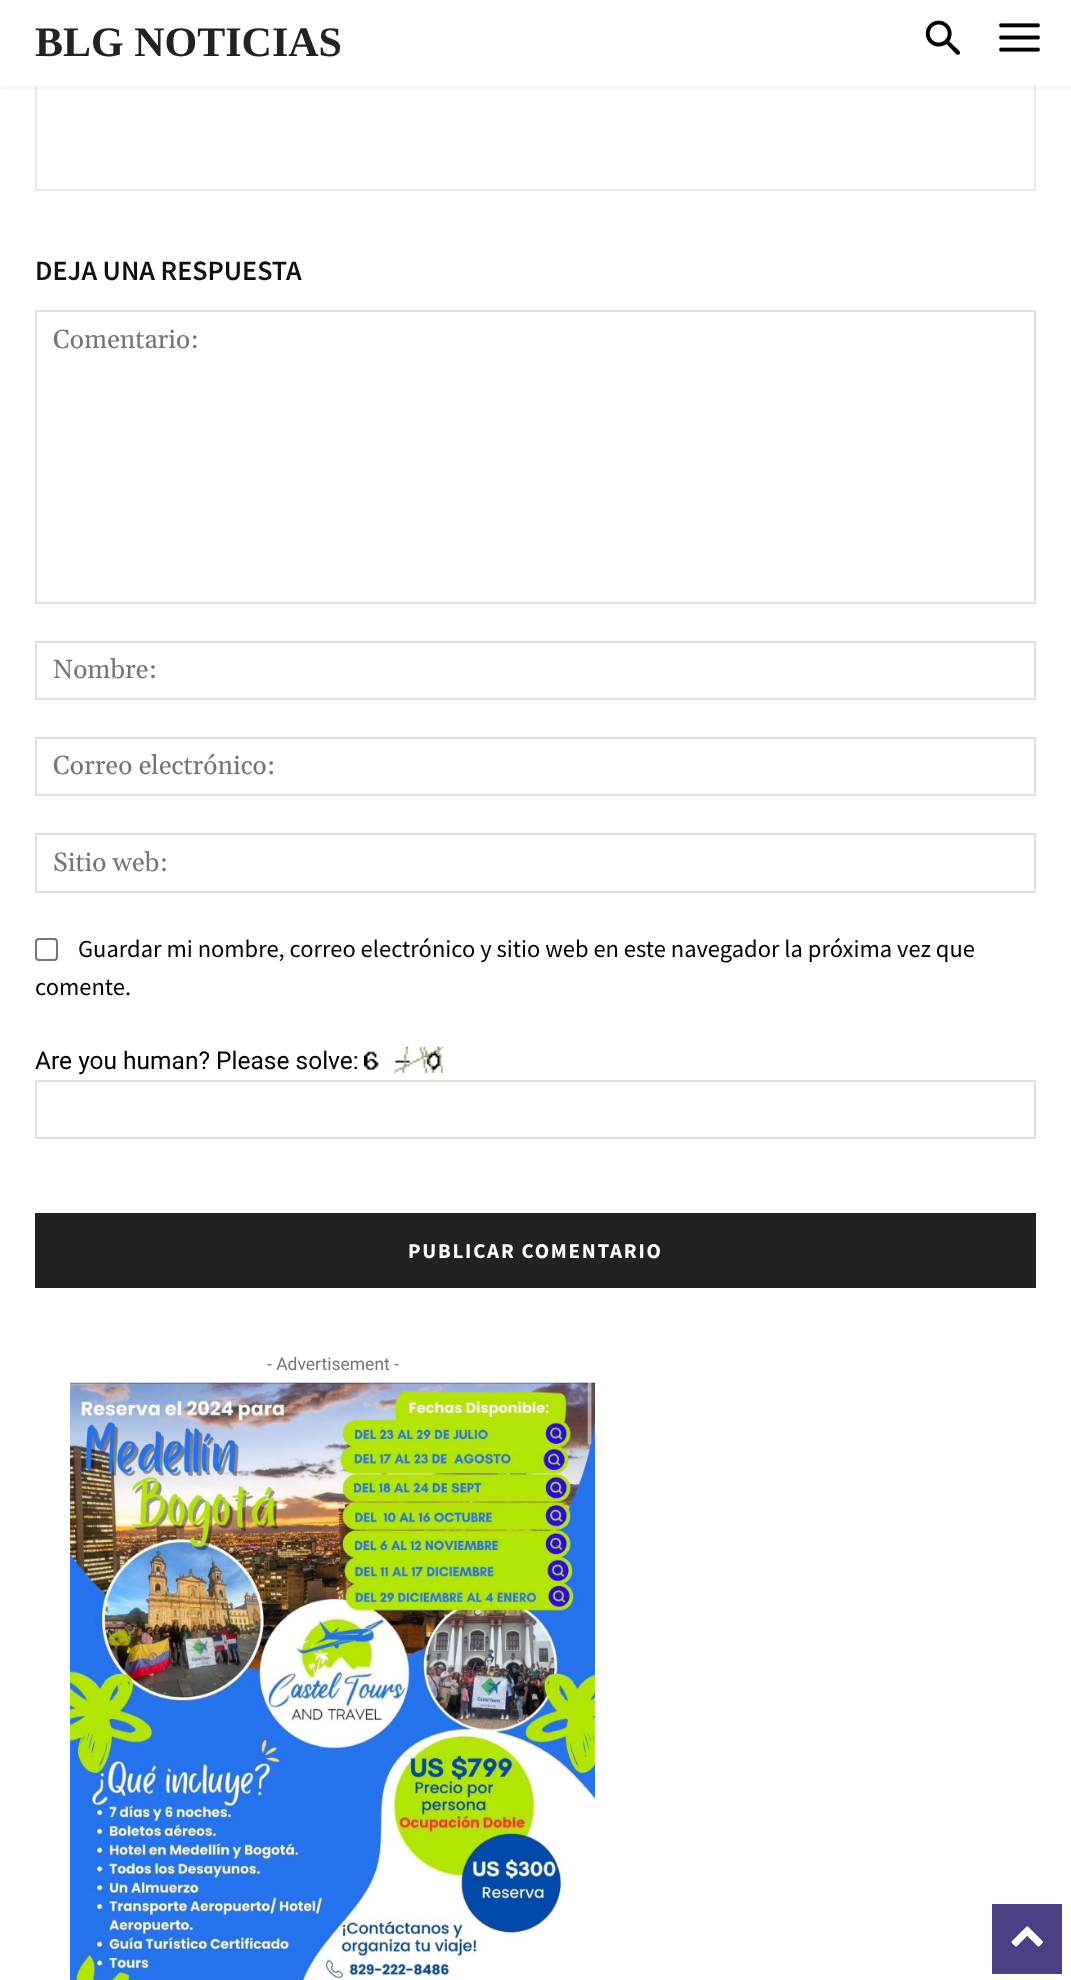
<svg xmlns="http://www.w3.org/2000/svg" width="1071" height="1980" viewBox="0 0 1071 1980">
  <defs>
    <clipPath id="clip1"><rect x="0" y="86" width="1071" height="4"/></clipPath>
    <filter id="blur1" x="-50%" y="-200%" width="200%" height="500%"><feGaussianBlur stdDeviation="3.5"/></filter>
  </defs>
  <rect width="100%" height="100%" fill="#ffffff"/>
  <rect x="36" y="-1" width="999" height="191" fill="none" stroke="#eaeaea" stroke-width="2"/>
  <rect x="35" y="0" width="1001" height="86" fill="#ffffff"/>
  <image x="925" y="20" width="36" height="35" href="img1.png"/>
  <image x="999" y="23" width="41" height="29" href="img2.png"/>
  <g clip-path="url(#clip1)">
    <rect x="0" y="4" width="1071" height="85" fill="#000000" fill-opacity="0.06" filter="url(#blur1)"/>
  </g>
  <text x="35" y="56" font-family="Liberation Serif" font-size="42" font-weight="bold" fill="#222222">BLG NOTICIAS</text>
  <text x="35" y="280" font-family="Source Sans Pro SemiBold" font-size="28" font-weight="600" fill="#111111">DEJA UNA RESPUESTA</text>
  <rect x="36" y="311" width="999" height="292" fill="none" stroke="#e1e1e1" stroke-width="2"/>
  <text x="53" y="348" font-family="Gelasio" font-size="26.25" fill="#757575">Comentario:</text>
  <rect x="36" y="642" width="999" height="57" fill="none" stroke="#e1e1e1" stroke-width="2"/>
  <text x="53" y="678" font-family="Gelasio" font-size="26.25" fill="#757575">Nombre:</text>
  <rect x="36" y="738" width="999" height="57" fill="none" stroke="#e1e1e1" stroke-width="2"/>
  <text x="53" y="774" font-family="Gelasio" font-size="26.25" fill="#757575">Correo electrónico:</text>
  <rect x="36" y="834" width="999" height="58" fill="none" stroke="#e1e1e1" stroke-width="2"/>
  <text x="53" y="871" font-family="Gelasio" font-size="26.25" fill="#757575">Sitio web:</text>
  <rect x="36" y="939" width="21" height="21" rx="3" fill="none" stroke="#767676" stroke-width="2"/>
  <text x="78" y="957" font-family="Source Sans Pro" font-size="24.5" fill="#000000">Guardar mi nombre, correo electrónico y sitio web en este navegador la próxima vez que</text>
  <text x="35" y="995" font-family="Source Sans Pro" font-size="24.5" fill="#000000">comente.</text>
  <text x="35" y="1069" font-family="Roboto" font-size="24.5" fill="#000000">Are you human? Please solve:</text>
  <image x="364" y="1046" width="79" height="27" href="img3.png"/>
  <rect x="36" y="1081" width="999" height="57" fill="none" stroke="#e1e1e1" stroke-width="2"/>
  <rect x="35" y="1213" width="1001" height="75" fill="#222222"/>
  <text x="408" y="1258" font-family="Source Sans Pro" font-size="21" font-weight="bold" letter-spacing="1.75" fill="#ffffff">PUBLICAR COMENTARIO</text>
  <text x="267" y="1370" font-family="Roboto" font-size="17.5" fill="#757575">- Advertisement -</text>
  <image x="70" y="1382" width="525" height="598" href="img4.png"/>
  <rect x="992" y="1904" width="70" height="70" fill="#4c4084"/>
  <image x="1011" y="1926" width="32" height="21" href="img5.png"/>
</svg>
